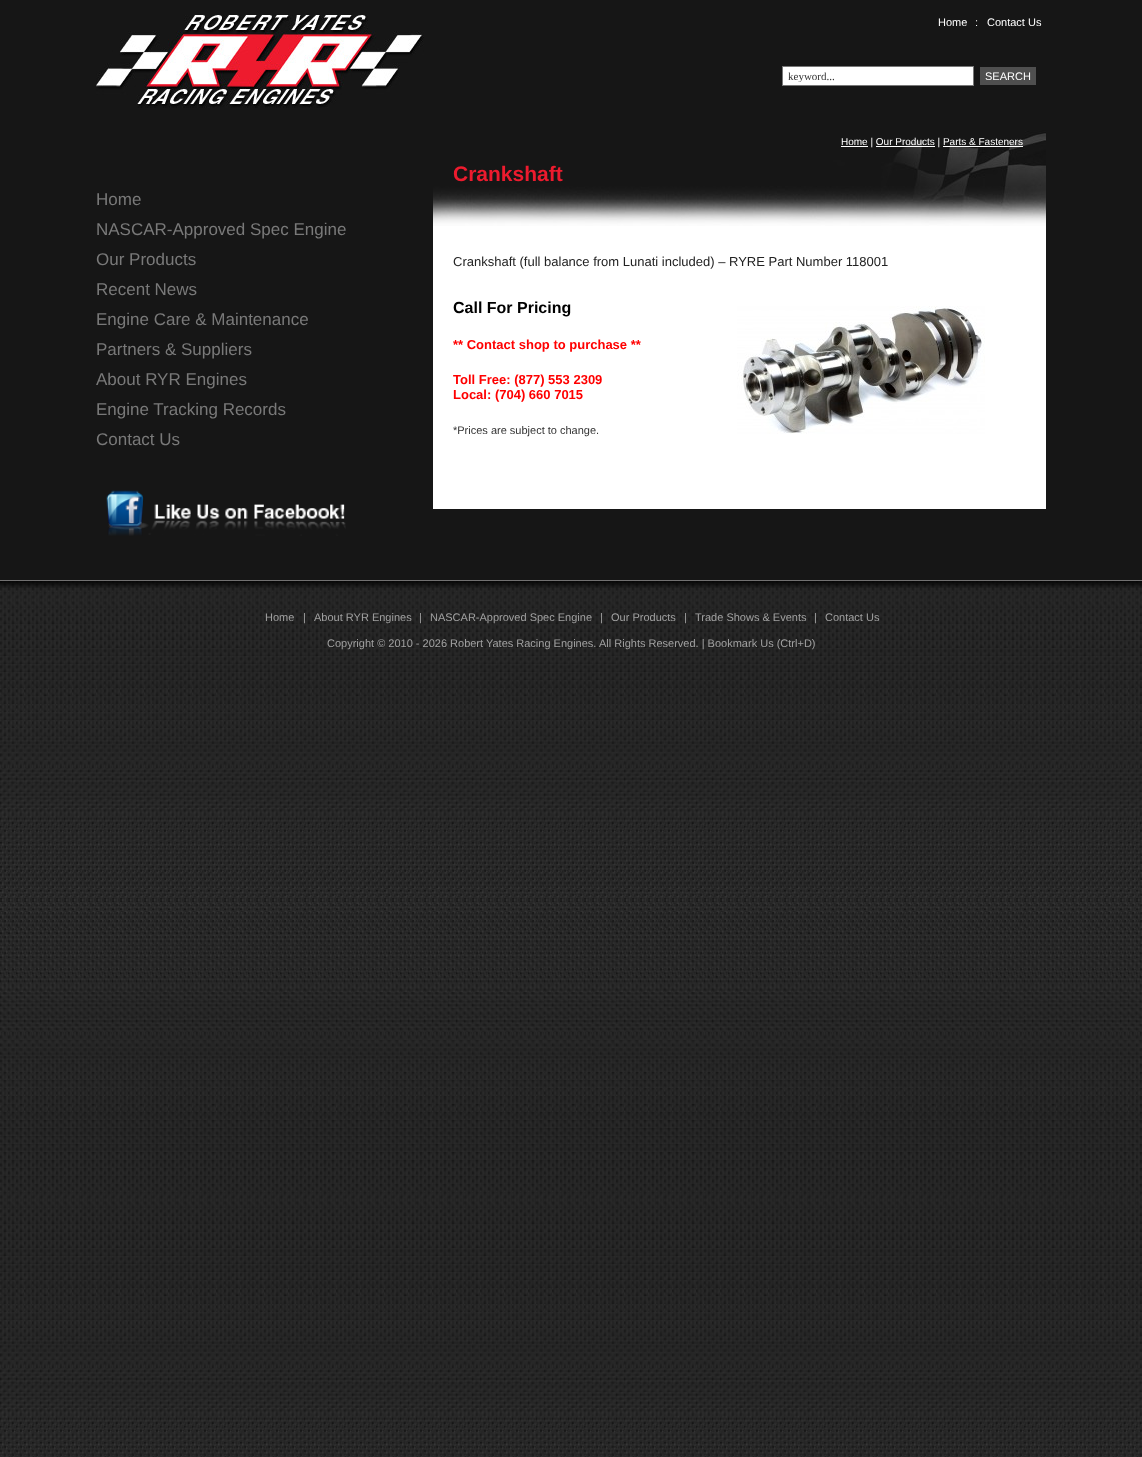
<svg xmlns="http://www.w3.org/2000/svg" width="1142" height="1457">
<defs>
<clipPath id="clip1"><rect x="788" y="70" width="185" height="12"/></clipPath>
</defs>
<rect width="100%" height="100%" fill="#fff"/>
<image x="0" y="581" width="1142" height="876" href="media/1.png"/>
<rect width="1142" height="567" fill="#161616"/>
<image x="96" y="15" width="328" height="93" href="media/2.png"/>
<text x="938" y="26" style="font-family:Liberation Sans;font-size:11px;fill:#fff">Home</text>
<text x="975" y="26" style="font-family:Liberation Sans;font-size:11px;fill:#fff">:</text>
<text x="987" y="26" style="font-family:Liberation Sans;font-size:11px;fill:#fff">Contact Us</text>
<rect x="782.5" y="66.5" width="191" height="19" fill="#fff" stroke="#777"/>
<g clip-path="url(#clip1)">
<text x="788" y="80" style="font-family:Liberation Serif;font-size:11px;fill:#333">keyword...</text>
</g>
<rect x="980" y="67" width="56" height="18" fill="#4f4f4f"/>
<text x="985" y="80" style="font-family:Liberation Sans;font-size:11px;fill:#fff">SEARCH</text>
<text x="96" y="205" style="font-family:Liberation Sans;font-size:17px;fill:#797979">Home</text>
<text x="96" y="235" style="font-family:Liberation Sans;font-size:17px;fill:#797979">NASCAR-Approved Spec Engine</text>
<text x="96" y="265" style="font-family:Liberation Sans;font-size:17px;fill:#797979">Our Products</text>
<text x="96" y="295" style="font-family:Liberation Sans;font-size:17px;fill:#797979">Recent News</text>
<text x="96" y="325" style="font-family:Liberation Sans;font-size:17px;fill:#797979">Engine Care &amp; Maintenance</text>
<text x="96" y="355" style="font-family:Liberation Sans;font-size:17px;fill:#797979">Partners &amp; Suppliers</text>
<text x="96" y="385" style="font-family:Liberation Sans;font-size:17px;fill:#797979">About RYR Engines</text>
<text x="96" y="415" style="font-family:Liberation Sans;font-size:17px;fill:#797979">Engine Tracking Records</text>
<text x="96" y="445" style="font-family:Liberation Sans;font-size:17px;fill:#797979">Contact Us</text>
<image x="106" y="490" width="240" height="46" href="media/3.png"/>
<rect x="433" y="226" width="613" height="283" fill="#fff"/>
<image x="433" y="130" width="613" height="96" href="media/4.png"/>
<rect x="841" y="146" width="27" height="1" fill="#fff"/>
<text x="841" y="145" style="font-family:Liberation Sans;font-size:10px;fill:#fff">Home | Our Products | Parts &amp; Fasteners</text>
<rect x="876" y="146" width="59" height="1" fill="#fff"/>
<rect x="943" y="146" width="80" height="1" fill="#fff"/>
<text x="453" y="181" style="font-family:Liberation Sans;font-size:21px;font-weight:bold;fill:#ed1b2e">Crankshaft</text>
<text x="453" y="266" style="font-family:Liberation Sans;font-size:13px;fill:#222">Crankshaft (full balance from Lunati included) – RYRE Part Number 118001</text>
<image x="737" y="306" width="248" height="128" href="media/5.png"/>
<text x="453" y="313" style="font-family:Liberation Sans;font-size:16px;font-weight:bold;fill:#000">Call For Pricing</text>
<text x="453" y="349" style="font-family:Liberation Sans;font-size:13px;font-weight:bold;fill:#f00">** Contact shop to purchase **</text>
<text x="453" y="384" style="font-family:Liberation Sans;font-size:13px;font-weight:bold;fill:#f00">Toll Free: (877) 553 2309</text>
<text x="453" y="399" style="font-family:Liberation Sans;font-size:13px;font-weight:bold;fill:#f00">Local: (704) 660 7015</text>
<text x="453" y="434" style="font-family:Liberation Sans;font-size:11px;fill:#333">*Prices are subject to change.</text>
<image x="0" y="567" width="1142" height="21" href="media/6.png"/>
<text x="265" y="621" style="font-family:Liberation Sans;font-size:11px;fill:#a1a1a1">Home</text>
<text x="303" y="621" style="font-family:Liberation Sans;font-size:11px;fill:#a1a1a1">|</text>
<text x="314" y="621" style="font-family:Liberation Sans;font-size:11px;fill:#a1a1a1">About RYR Engines</text>
<text x="419" y="621" style="font-family:Liberation Sans;font-size:11px;fill:#a1a1a1">|</text>
<text x="430" y="621" style="font-family:Liberation Sans;font-size:11px;fill:#a1a1a1">NASCAR-Approved Spec Engine</text>
<text x="600" y="621" style="font-family:Liberation Sans;font-size:11px;fill:#a1a1a1">|</text>
<text x="611" y="621" style="font-family:Liberation Sans;font-size:11px;fill:#a1a1a1">Our Products</text>
<text x="684" y="621" style="font-family:Liberation Sans;font-size:11px;fill:#a1a1a1">|</text>
<text x="695" y="621" style="font-family:Liberation Sans;font-size:11px;fill:#a1a1a1">Trade Shows &amp; Events</text>
<text x="814" y="621" style="font-family:Liberation Sans;font-size:11px;fill:#a1a1a1">|</text>
<text x="825" y="621" style="font-family:Liberation Sans;font-size:11px;fill:#a1a1a1">Contact Us</text>
<text x="327" y="647" style="font-family:Liberation Sans;font-size:11px;fill:#a1a1a1">Copyright © 2010 - 2026 Robert Yates Racing Engines.</text>
<text x="599" y="647" style="font-family:Liberation Sans;font-size:11px;fill:#a1a1a1">All Rights Reserved. | Bookmark Us (Ctrl+D)</text>
</svg>
